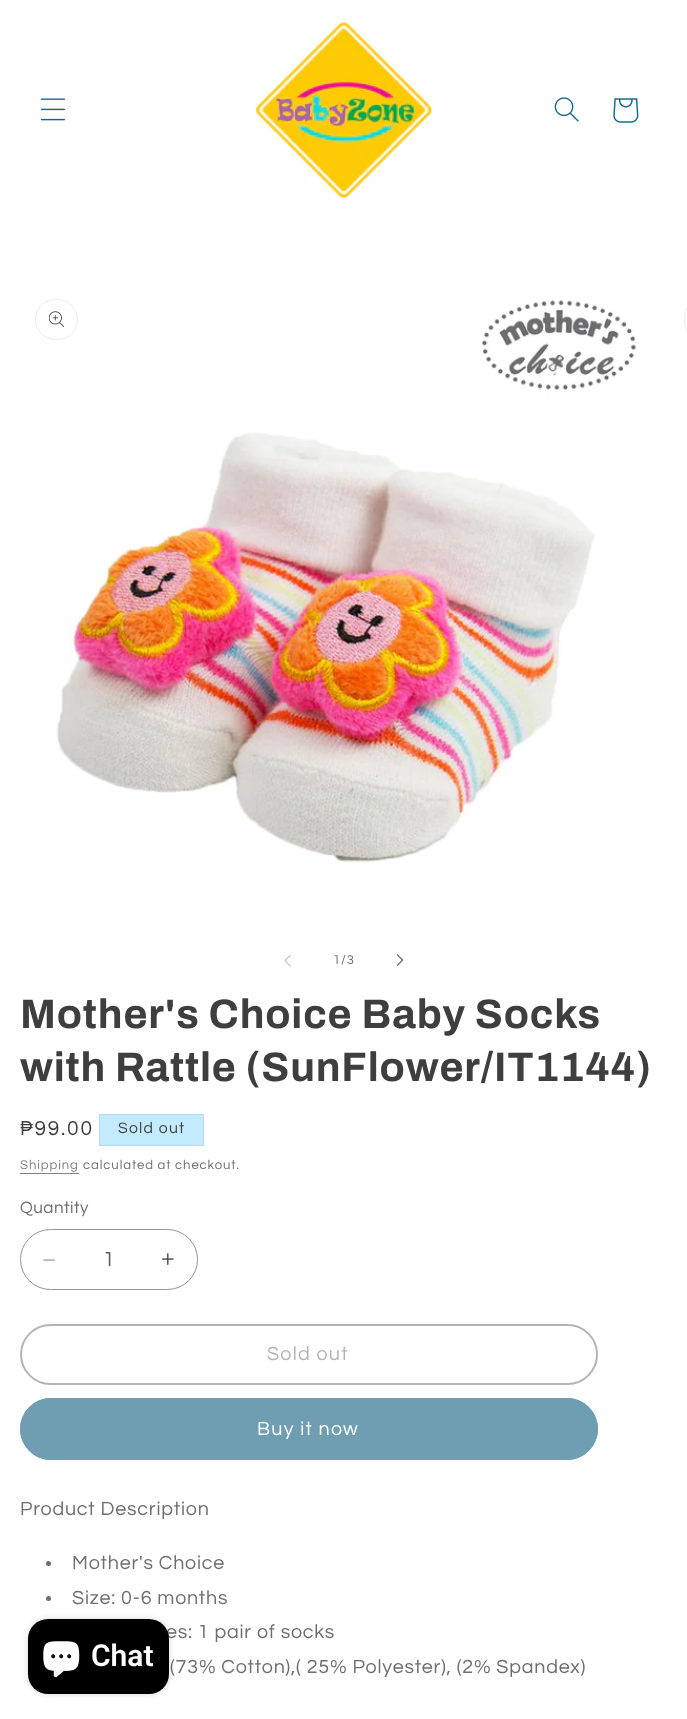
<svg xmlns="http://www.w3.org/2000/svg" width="687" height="1719">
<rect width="100%" height="100%" fill="#fff"/>
<image x="40" y="98" width="26" height="23" href="media/1.png"/>
<image x="256" y="22" width="176" height="176" href="media/2.png"/>
<image x="554" y="97" width="25" height="25" href="media/3.png"/>
<image x="613" y="98" width="26" height="25" href="media/4.png"/>
<image x="56" y="300" width="581" height="563" href="media/6.png"/>
<rect x="35.5" y="299.5" width="42" height="40" rx="20" fill="none" stroke="#ececec"/>
<image x="49" y="311" width="15" height="16" href="media/5.png"/>
<rect x="684.5" y="299.5" width="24" height="40" rx="20" fill="none" stroke="#ececec"/>
<image x="284" y="955" width="7" height="12" href="media/7.png"/>
<text x="333" y="964" style="font-family:Questrial;font-size:13.1px;letter-spacing:0.9px;fill:#6e6e6e">1/3</text>
<image x="396" y="954" width="8" height="12" href="media/8.png"/>
<text x="20" y="1028" style="font-family:Archivo;font-size:41.25px;font-weight:bold;letter-spacing:0.8px;fill:#3e3e3e">Mother's Choice Baby Socks</text>
<text x="20" y="1081" style="font-family:Archivo;font-size:41.25px;font-weight:bold;letter-spacing:0.8px;fill:#3e3e3e">with Rattle (SunFlower/IT1144)</text>
<text x="20" y="1135" style="font-family:Questrial;font-size:21px;letter-spacing:1.75px;fill:#3e3e3e">₱99.00</text>
<rect x="99.5" y="1114.5" width="104" height="31" fill="#c2ebff" stroke="#b5daec"/>
<text x="118" y="1133" style="font-family:Questrial;font-size:15.75px;letter-spacing:1.25px;fill:#3e3e3e">Sold out</text>
<text x="20" y="1169" style="font-family:Questrial;font-size:13.1px;letter-spacing:0.9px;fill:#808080">Shipping</text>
<rect x="20" y="1173" width="59" height="1" fill="#808080"/>
<text x="83" y="1169" style="font-family:Questrial;font-size:13.1px;letter-spacing:0.9px;fill:#6e6e6e">calculated at checkout.</text>
<text x="20" y="1213" style="font-family:Questrial;font-size:17px;letter-spacing:0.5px;fill:#6e6e6e">Quantity</text>
<image x="43" y="1259" width="12" height="2" href="media/9.png"/>
<image x="162" y="1253" width="12" height="12" href="media/10.png"/>
<rect x="20.5" y="1229.5" width="177" height="60" rx="30" fill="none" stroke="#959595"/>
<text x="103" y="1266" style="font-family:Questrial;font-size:21px;fill:#5b5b5b">1</text>
<rect x="21" y="1325" width="576" height="59" rx="29.5" fill="none" stroke="#b4b4b4" stroke-width="2"/>
<text x="267" y="1360" style="font-family:Questrial;font-size:19.7px;letter-spacing:1.25px;fill:#b4b4b4">Sold out</text>
<rect x="20" y="1398" width="578" height="62" rx="31" fill="#6f9db2"/>
<rect x="20.5" y="1398.5" width="577" height="61" rx="30.5" fill="none" stroke="#6f9db2"/>
<text x="257" y="1435" style="font-family:Questrial;font-size:19.7px;letter-spacing:1.25px;fill:#fff">Buy it now</text>
<text x="20" y="1515" style="font-family:Questrial;font-size:19.7px;letter-spacing:0.8px;fill:#6e6e6e">Product Description</text>
<circle cx="48.5" cy="1563.5" r="2.5" fill="#6e6e6e"/>
<text x="72" y="1569" style="font-family:Questrial;font-size:19.7px;letter-spacing:0.8px;fill:#6e6e6e">Mother's Choice</text>
<circle cx="48.5" cy="1598.5" r="2.5" fill="#6e6e6e"/>
<text x="72" y="1604" style="font-family:Questrial;font-size:19.7px;letter-spacing:0.8px;fill:#6e6e6e">Size: 0-6 months</text>
<text x="166" y="1638" style="font-family:Questrial;font-size:19.7px;letter-spacing:0.8px;fill:#6e6e6e">es: 1 pair of socks</text>
<text x="170" y="1673" style="font-family:Questrial;font-size:19.7px;letter-spacing:0.8px;fill:#6e6e6e">(73% Cotton),( 25% Polyester), (2% Spandex)</text>
<rect x="28" y="1619" width="141" height="75" rx="20" fill="#00000026" filter="blur(3px)"/>
<rect x="28" y="1619" width="141" height="75" rx="20" fill="#000"/>
<image x="43" y="1641" width="37" height="37" href="media/11.png"/>
<text x="91" y="1666" style="font-family:Roboto;font-size:30px;font-weight:600;fill:#fff">Chat</text>
</svg>
